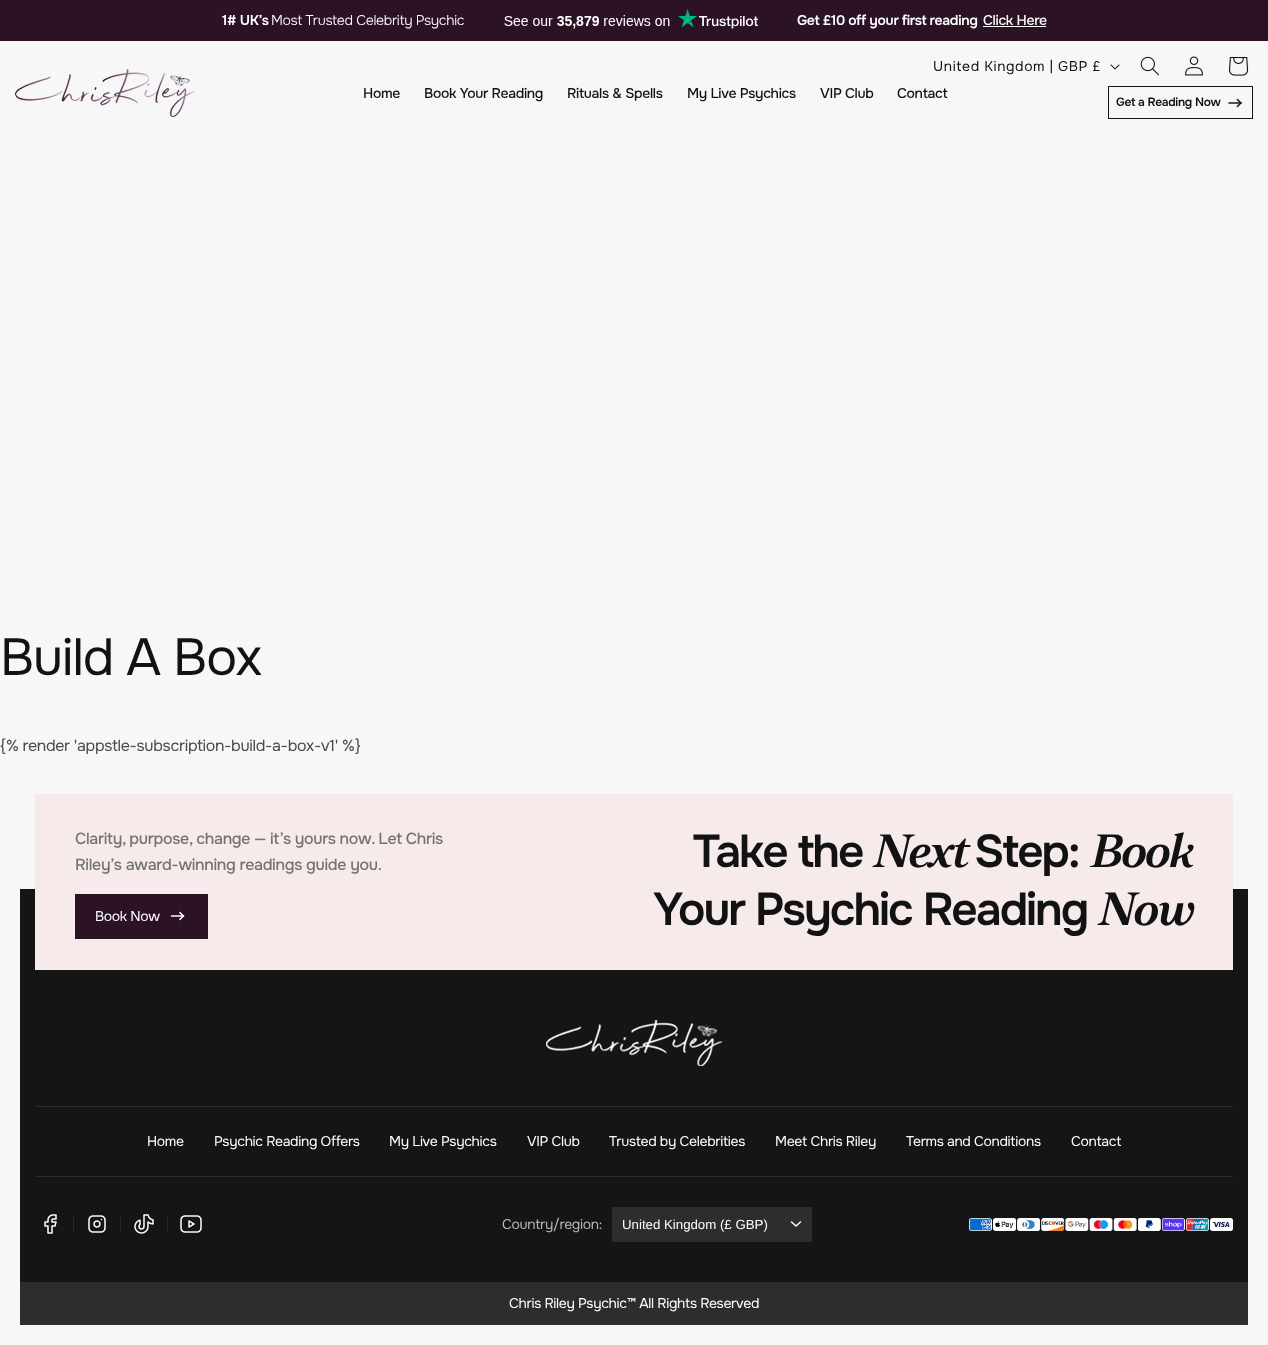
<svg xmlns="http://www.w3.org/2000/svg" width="1268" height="1345">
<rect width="100%" height="100%" fill="#f8f7f8"/>
<rect width="1268" height="41" fill="#2b1225"/>
<text x="222" y="25" style="font-family:Onest;font-size:14px;font-weight:600;letter-spacing:-0.32px;fill:#fff">1# UK’s</text>
<text x="271" y="25" style="font-family:Onest;font-size:14px;font-weight:300;letter-spacing:-0.32px;fill:#fff">Most Trusted Celebrity Psychic</text>
<image x="504" y="9" width="254" height="20" href="media/1.png"/>
<text x="797" y="25" word-spacing="-0.25" style="font-family:Onest;font-size:14px;font-weight:600;letter-spacing:-0.32px;fill:#fff">Get £10 off your first reading</text>
<text x="983" y="25" style="font-family:Onest;font-size:14px;font-weight:500;letter-spacing:-0.32px;fill:#fff">Click Here</text>
<rect x="983" y="26" width="63" height="1" fill="#fff"/>
<text x="933" y="71" style="font-family:Onest;font-size:14px;letter-spacing:0.6px;fill:#121212">United Kingdom |</text>
<text x="1058" y="71" style="font-family:Onest;font-size:14px;letter-spacing:0.6px;fill:#121212">GBP £</text>
<image x="1110" y="64" width="10" height="6" href="media/2.png"/>
<image x="1140" y="56" width="19" height="20" href="media/3.png"/>
<image x="1185" y="56" width="18" height="20" href="media/4.png"/>
<image x="1229" y="57" width="20" height="19" href="media/5.png"/>
<image x="15" y="69" width="180" height="48" href="media/6.png"/>
<text x="363" y="98" style="font-family:Onest;font-size:14px;font-weight:500;letter-spacing:-0.32px;fill:#121212">Home</text>
<text x="424" y="98" style="font-family:Onest;font-size:14px;font-weight:500;letter-spacing:-0.32px;fill:#121212">Book Your Reading</text>
<text x="567" y="98" style="font-family:Onest;font-size:14px;font-weight:500;letter-spacing:-0.32px;fill:#121212">Rituals &amp; Spells</text>
<text x="687" y="98" style="font-family:Onest;font-size:14px;font-weight:500;letter-spacing:-0.32px;fill:#121212">My Live Psychics</text>
<text x="820" y="98" style="font-family:Onest;font-size:14px;font-weight:500;letter-spacing:-0.32px;fill:#121212">VIP Club</text>
<text x="897" y="98" style="font-family:Onest;font-size:14px;font-weight:500;letter-spacing:-0.32px;fill:#121212">Contact</text>
<rect x="1108.5" y="86.5" width="144" height="32" fill="none" stroke="#151515"/>
<text x="1116" y="106" style="font-family:Onest;font-size:12px;font-weight:600;letter-spacing:-0.32px;fill:#121212">Get a Reading Now</text>
<image x="1228" y="98" width="14" height="10" href="media/7.png"/>
<text x="0" y="675" style="font-family:Onest;font-size:52px;letter-spacing:-1px;fill:#121212">Build A Box</text>
<text x="0" y="751" style="font-family:Onest;font-size:16px;letter-spacing:-0.32px;fill:#4c4b4c">{% render 'appstle-subscription-build-a-box-v1' %}</text>
<rect x="20" y="889" width="1228" height="393" fill="#151515"/>
<rect x="35" y="794" width="1198" height="176" fill="#f6ebea"/>
<text x="75" y="844" word-spacing="-0.25" style="font-family:Onest;font-size:16px;font-weight:500;letter-spacing:-0.32px;fill:#737373">Clarity, purpose, change — it’s yours now. Let Chris</text>
<text x="75" y="870" style="font-family:Onest;font-size:16px;font-weight:500;letter-spacing:-0.32px;fill:#737373">Riley’s award-winning readings guide you.</text>
<rect x="75" y="894" width="133" height="45" fill="#2b1225"/>
<text x="95" y="921" style="font-family:Onest;font-size:14px;letter-spacing:-0.32px;fill:#fff">Book Now</text>
<image x="170" y="911" width="15" height="10" href="media/8.png"/>
<text x="693" y="867" style="font-family:Onest;font-size:46px;font-weight:600;letter-spacing:-2px;fill:#121212">Take the</text>
<text x="873" y="867" style="font-family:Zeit;font-size:46px;font-weight:500;font-style:italic;letter-spacing:-2px;fill:#121212">Next</text>
<text x="974" y="867" style="font-family:Onest;font-size:46px;font-weight:600;letter-spacing:-2px;fill:#121212">Step:</text>
<text x="1090" y="867" style="font-family:Zeit;font-size:46px;font-weight:500;font-style:italic;letter-spacing:-2px;fill:#121212">Book</text>
<text x="653" y="925" style="font-family:Onest;font-size:46px;font-weight:600;letter-spacing:-2px;fill:#121212">Your Psychic Reading</text>
<text x="1098" y="925" style="font-family:Zeit;font-size:46px;font-weight:500;font-style:italic;letter-spacing:-2px;fill:#121212">Now</text>
<image x="546" y="1020" width="176" height="46" href="media/9.png"/>
<rect x="35" y="1106" width="1198" height="1" fill="#2c2c2c"/>
<rect x="35" y="1176" width="1198" height="1" fill="#2c2c2c"/>
<text x="147" y="1146" style="font-family:Onest;font-size:14px;letter-spacing:-0.32px;fill:#fff">Home</text>
<text x="214" y="1146" style="font-family:Onest;font-size:14px;letter-spacing:-0.32px;fill:#fff">Psychic Reading Offers</text>
<text x="389" y="1146" style="font-family:Onest;font-size:14px;letter-spacing:-0.32px;fill:#fff">My Live Psychics</text>
<text x="527" y="1146" style="font-family:Onest;font-size:14px;letter-spacing:-0.32px;fill:#fff">VIP Club</text>
<text x="609" y="1146" style="font-family:Onest;font-size:14px;letter-spacing:-0.32px;fill:#fff">Trusted by Celebrities</text>
<text x="775" y="1146" style="font-family:Onest;font-size:14px;letter-spacing:-0.32px;fill:#fff">Meet Chris Riley</text>
<text x="906" y="1146" style="font-family:Onest;font-size:14px;letter-spacing:-0.32px;fill:#fff">Terms and Conditions</text>
<text x="1071" y="1146" style="font-family:Onest;font-size:14px;letter-spacing:-0.32px;fill:#fff">Contact</text>
<image x="44" y="1214" width="13" height="20" href="media/10.png"/>
<rect x="73" y="1217" width="1" height="14" fill="#2c2c2c"/>
<image x="88" y="1215" width="18" height="18" href="media/11.png"/>
<rect x="120" y="1217" width="1" height="14" fill="#2c2c2c"/>
<image x="134" y="1214" width="20" height="20" href="media/12.png"/>
<rect x="167" y="1217" width="1" height="14" fill="#2c2c2c"/>
<image x="180" y="1215" width="22" height="18" href="media/13.png"/>
<text x="502" y="1229" style="font-family:Onest;font-size:14px;letter-spacing:-0.32px;fill:#b6b6b6">Country/region:</text>
<rect x="612" y="1207" width="200" height="35" fill="#2d2d2d"/>
<path d="M791.5 1222l4.5 4l4.5-4" fill="none" stroke="#fff" stroke-width="1.5" stroke-linecap="round" stroke-linejoin="round"/>
<text x="622" y="1229" style="font-family:Liberation Sans;font-size:13.25px;fill:#fff">United Kingdom (£ GBP)</text>
<image x="969" y="1218" width="264" height="13" href="media/14.png"/>
<rect x="20" y="1282" width="1228" height="43" fill="#2d2d2d"/>
<text x="509" y="1308" style="font-family:Onest;font-size:14px;letter-spacing:-0.32px;fill:#fff">Chris Riley Psychic™ All Rights Reserved</text>
</svg>
